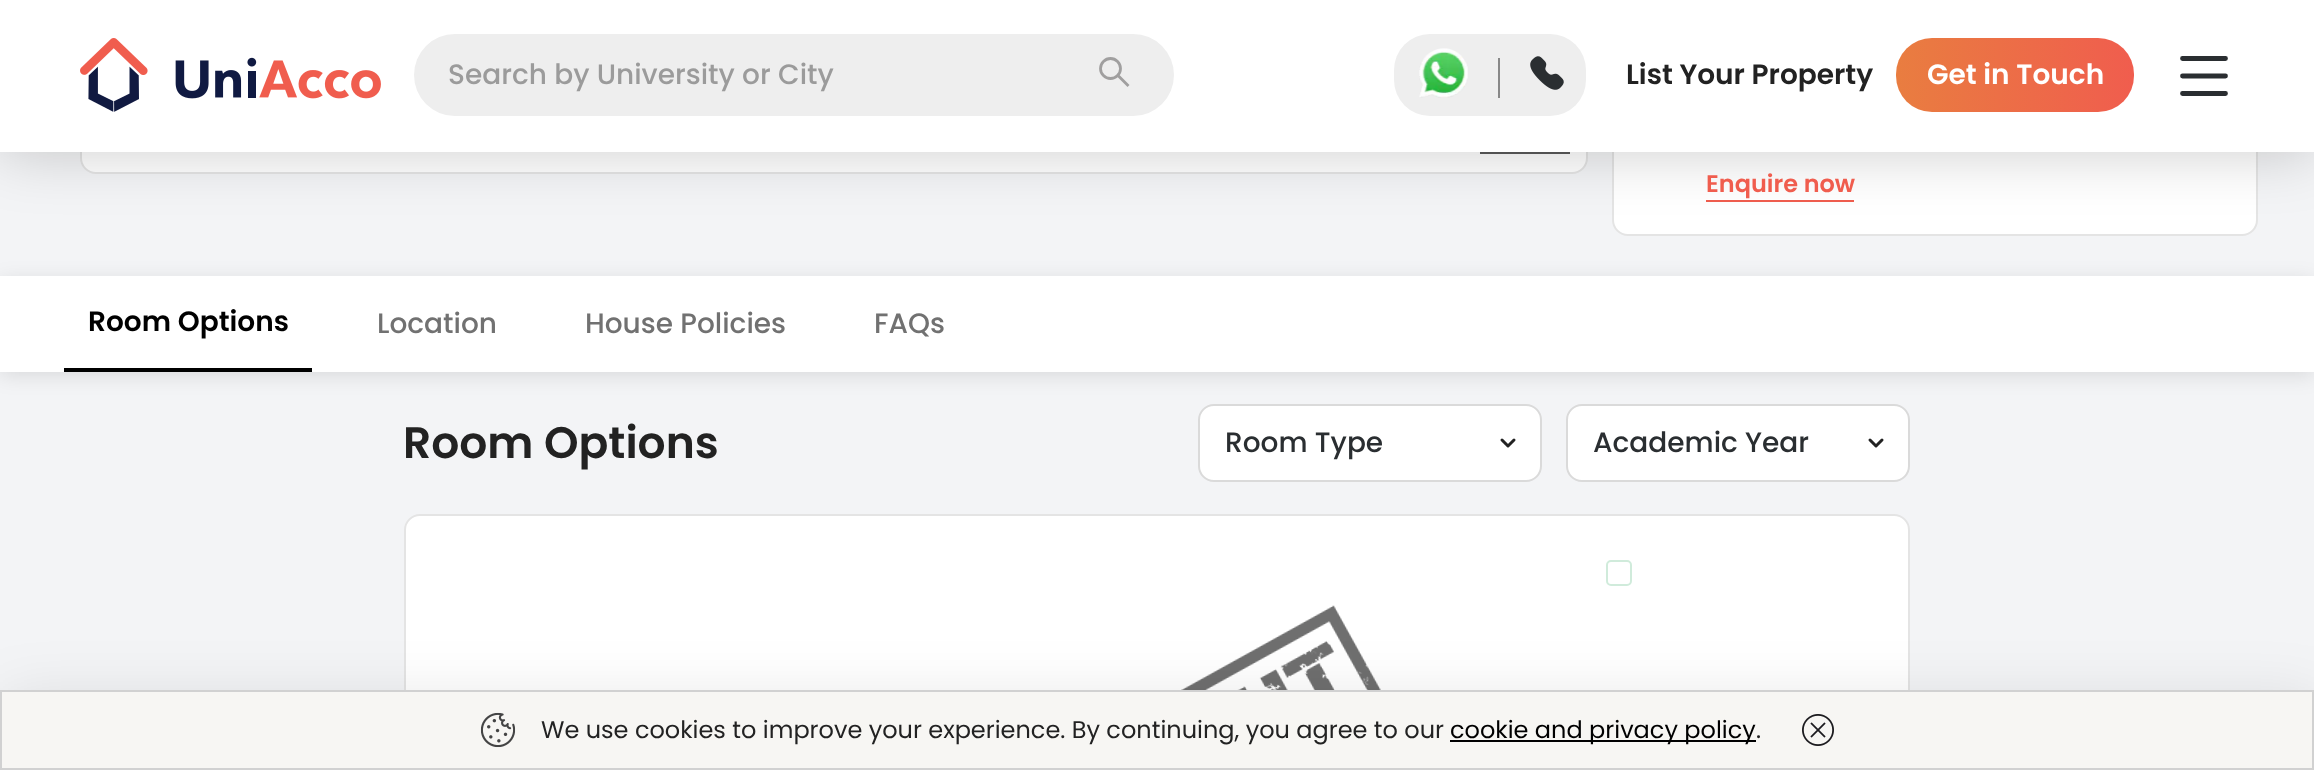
<svg xmlns="http://www.w3.org/2000/svg" width="2314" height="770">
<defs>
<linearGradient id="g1" gradientUnits="userSpaceOnUse" x1="2134" y1="75" x2="1896" y2="75"><stop offset="0" stop-color="#f05d4e"/><stop offset="1" stop-color="#e97d40"/></linearGradient>
</defs>
<rect width="100%" height="100%" fill="#f3f4f6"/>
<rect x="81" y="-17" width="1506" height="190" rx="15" fill="#fff" stroke="#e4e4e4" stroke-width="2"/>
<rect x="1480" y="152" width="90" height="2" fill="#5b5b5b"/>
<rect x="1613" y="17" width="644" height="218" rx="15" fill="#fff" stroke="#e4e4e4" stroke-width="2"/>
<rect x="1706" y="200" width="148" height="2" fill="#f05d4e"/>
<rect width="2314" height="152" fill="#00000033" filter="blur(30px)"/>
<rect width="2314" height="152" fill="#fff"/>
<image x="80" y="38" width="301" height="74" href="media/1.png"/>
<rect x="414" y="34" width="760" height="82" rx="41" fill="#eee"/>
<text x="448" y="84" style="font-family:Poppins;font-size:28px;font-weight:500;fill:#9b9b9b">Search by University or City</text>
<circle cx="1110.5" cy="68.5" r="10" fill="none" stroke="#a09f9f" stroke-width="2.8"/>
<path d="M1117 74.5l11.5 11.5" fill="none" stroke="#a09f9f" stroke-width="2.8"/>
<rect x="1394" y="34" width="192" height="82" rx="36" fill="#eee"/>
<image x="1419" y="48" width="49" height="50" href="media/2.png"/>
<rect x="1498" y="58" width="2" height="40" fill="#888"/>
<image x="1530" y="56" width="34" height="34" href="media/3.png"/>
<text x="1626" y="84" style="font-family:Poppins;font-size:28px;font-weight:600;fill:#222">List Your Property</text>
<rect x="1896" y="38" width="238" height="74" rx="36" fill="url(#g1)"/>
<text x="1927" y="84" style="font-family:Poppins;font-size:28px;font-weight:600;fill:#fff">Get in Touch</text>
<path d="M2182.5 58.5h43m-43 17.5h43m-43 17.5h43" fill="none" stroke="#2a2e31" stroke-width="4.8" stroke-linecap="round"/>
<text x="1706" y="192" style="font-family:Poppins;font-size:24px;font-weight:600;fill:#f05d4e">Enquire now</text>
<rect x="1199" y="405" width="342" height="76" rx="15" fill="#fff" stroke="#dadada" stroke-width="2"/>
<rect x="1567" y="405" width="342" height="76" rx="15" fill="#fff" stroke="#dadada" stroke-width="2"/>
<rect y="280" width="2314" height="96" fill="#0000001a" filter="blur(10px)"/>
<rect y="276" width="2314" height="96" fill="#fff"/>
<rect x="64" y="368" width="248" height="4" fill="#000"/>
<text x="88" y="331" style="font-family:Poppins;font-size:28px;font-weight:600;fill:#000">Room Options</text>
<text x="377" y="333" style="font-family:Poppins;font-size:28px;font-weight:500;fill:#717171">Location</text>
<text x="585" y="333" style="font-family:Poppins;font-size:28px;font-weight:500;fill:#717171">House Policies</text>
<text x="874" y="333" style="font-family:Poppins;font-size:28px;font-weight:500;fill:#717171">FAQs</text>
<text x="403" y="458" style="font-family:Poppins;font-size:44px;font-weight:600;fill:#222">Room Options</text>
<text x="1225" y="452" style="font-family:Poppins;font-size:28px;font-weight:500;fill:#2a2e31">Room Type</text>
<path d="M1514 440l-6 6l-6-6" fill="none" stroke="#222" stroke-width="3" stroke-linecap="round" stroke-linejoin="round"/>
<text x="1593" y="452" style="font-family:Poppins;font-size:28px;font-weight:500;fill:#2a2e31">Academic Year</text>
<path d="M1882 440l-6 6l-6-6" fill="none" stroke="#222" stroke-width="3" stroke-linecap="round" stroke-linejoin="round"/>
<rect x="405" y="515" width="1504" height="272" rx="15" fill="#fff" stroke="#e4e4e4" stroke-width="2"/>
<rect x="1607" y="561" width="24" height="24" rx="4" fill="none" stroke="#149d4a" stroke-width="2"/>
<rect x="406" y="516" width="1502" height="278" rx="24" fill="#ffffffcc"/>
<image x="1181" y="605" width="200" height="85" href="media/4.png"/>
<rect x="4" y="698" width="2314" height="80" fill="#0000001a" filter="blur(30px)"/>
<rect x="1" y="691" width="2312" height="78" fill="#f7f6f3" stroke="#d1d1d1" stroke-width="2"/>
<image x="480" y="712" width="36" height="36" href="media/5.png"/>
<text x="541" y="738" style="font-family:Poppins;font-size:24px;fill:#222">We use cookies to improve your experience. By continuing, you agree to our</text>
<rect x="1450" y="740" width="306" height="2" fill="#000"/>
<text x="1450" y="738" style="font-family:Poppins;font-size:24px;fill:#000">cookie and privacy policy</text>
<text x="1756" y="738" style="font-family:Poppins;font-size:24px;fill:#222">.</text>
<image x="1802" y="714" width="32" height="32" href="media/6.png"/>
</svg>
